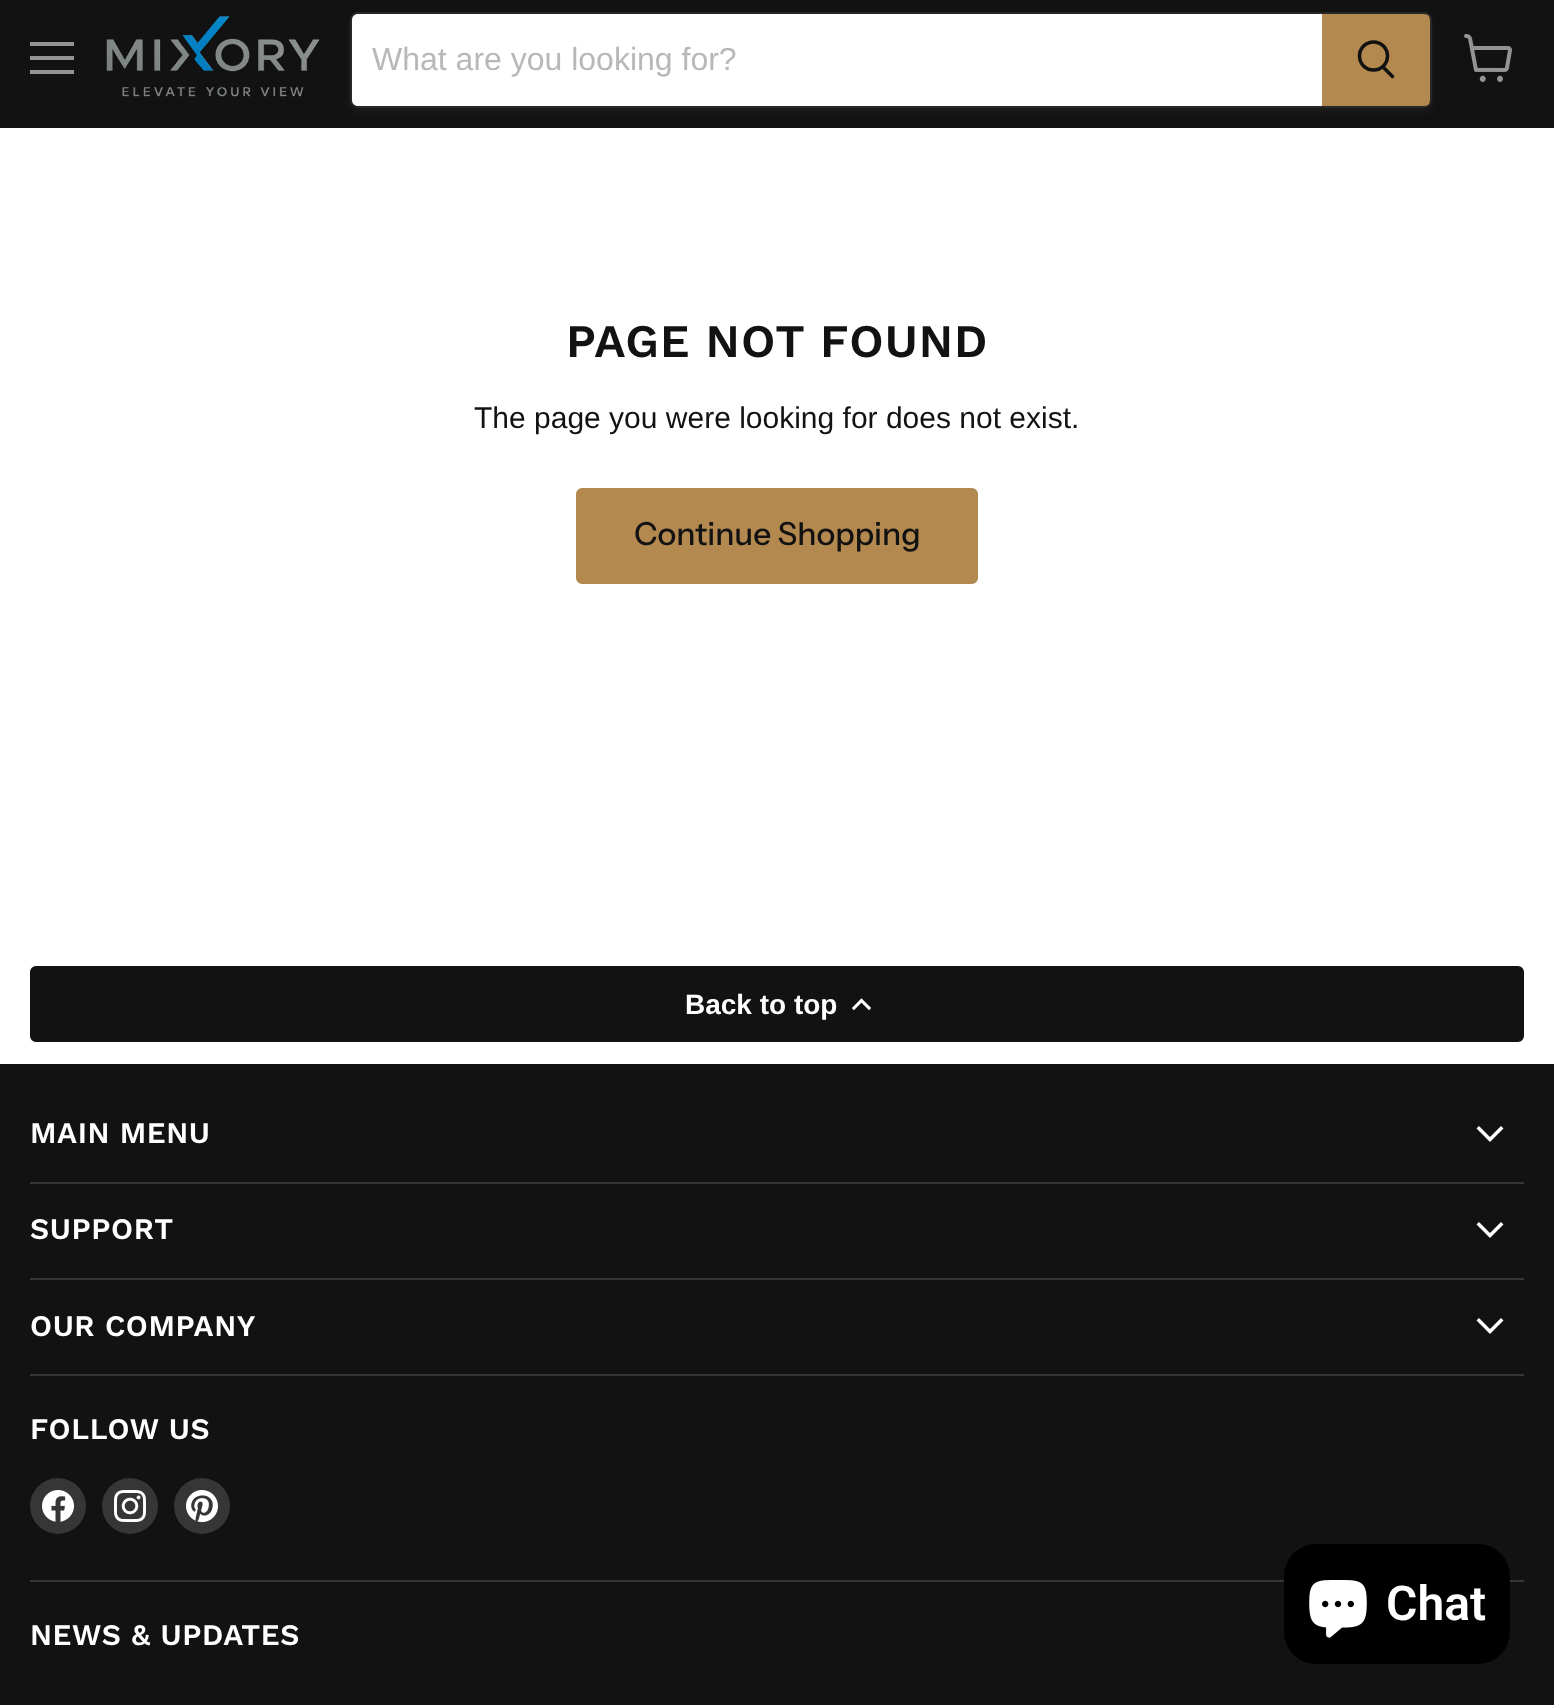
<svg xmlns="http://www.w3.org/2000/svg" width="1554" height="1705">
<defs>
<clipPath id="clip1"><path d="M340 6h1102v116h-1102zm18 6h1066c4.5 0 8 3.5 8 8v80c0 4.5-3.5 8-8 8h-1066c-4.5 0-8-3.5-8-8v-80c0-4.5 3.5-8 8-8z" clip-rule="evenodd"/></clipPath>
</defs>
<rect width="100%" height="100%" fill="#fff"/>
<rect width="1554" height="128" fill="#121212"/>
<rect x="30" y="42" width="44" height="4" fill="#949494"/>
<rect x="30" y="56" width="44" height="4" fill="#949494"/>
<rect x="30" y="70" width="44" height="4" fill="#949494"/>
<image x="106" y="16" width="214" height="81" href="media/1.png"/>
<g clip-path="url(#clip1)">
<rect x="350" y="16" width="1082" height="96" rx="8" fill="#8080801c" filter="blur(3px)"/>
</g>
<rect x="351" y="13" width="1080" height="94" rx="7" fill="none" stroke="#80808033" stroke-width="2"/>
<path d="M358 14h964v92h-964c-3.5 0-6-2.5-6-6v-80c0-3.5 2.5-6 6-6z" fill="#fff"/>
<text x="372" y="70" style="font-family:Liberation Sans;font-size:32px;fill:#b8b8b8">What are you looking for?</text>
<path d="M1323 15h101c3 0 5 2 5 5v80c0 3-2 5-5 5h-101z" fill="#b38950" stroke="#b38950" stroke-width="2"/>
<path d="M1392.5 76.5l-9.5-9.5" fill="none" stroke="#121212" stroke-width="3.5" stroke-linecap="round"/>
<circle cx="1373.5" cy="56" r="14" fill="none" stroke="#121212" stroke-width="3.5"/>
<image x="1464" y="34" width="48" height="48" href="media/2.png"/>
<text x="566" y="357" style="font-family:Work Sans;font-size:46.5px;font-weight:600;letter-spacing:1px;fill:#121212">PAGE NOT FOUND</text>
<text x="474" y="428" style="font-family:Liberation Sans;font-size:30px;fill:#121212">The page you were looking for does not exist.</text>
<rect x="577" y="489" width="400" height="94" rx="5" fill="#b38950" stroke="#b38950" stroke-width="2"/>
<text x="634" y="545" style="font-family:Instrument Sans;font-size:31.75px;font-weight:500;fill:#121212">Continue Shopping</text>
<rect x="31" y="967" width="1492" height="74" rx="5" fill="#121212" stroke="#121212" stroke-width="2"/>
<text x="685" y="1014" style="font-family:Liberation Sans;font-size:28px;font-weight:bold;fill:#fff">Back to top</text>
<path d="M861.5 1000.5l-7.5 7.5m7.5-7.5l7.5 7.5" fill="none" stroke="#fff" stroke-width="3.1" stroke-linecap="square"/>
<rect y="1064" width="1554" height="641" fill="#121212"/>
<rect x="30" y="1182" width="1494" height="2" fill="#363636"/>
<text x="30" y="1143" style="font-family:Work Sans;font-size:29.75px;font-weight:600;letter-spacing:0.6px;fill:#fff">MAIN MENU</text>
<path d="M1490 1139.5l11-11m-11 11l-11-11" fill="none" stroke="#fff" stroke-width="3.5" stroke-linecap="square"/>
<rect x="30" y="1278" width="1494" height="2" fill="#363636"/>
<text x="30" y="1239" style="font-family:Work Sans;font-size:29.75px;font-weight:600;letter-spacing:0.6px;fill:#fff">SUPPORT</text>
<path d="M1490 1235.5l11-11m-11 11l-11-11" fill="none" stroke="#fff" stroke-width="3.5" stroke-linecap="square"/>
<rect x="30" y="1374" width="1494" height="2" fill="#363636"/>
<text x="30" y="1336" style="font-family:Work Sans;font-size:29.75px;font-weight:600;letter-spacing:0.6px;fill:#fff">OUR COMPANY</text>
<path d="M1490 1331.5l11-11m-11 11l-11-11" fill="none" stroke="#fff" stroke-width="3.5" stroke-linecap="square"/>
<rect x="30" y="1580" width="1494" height="2" fill="#363636"/>
<text x="30" y="1439" style="font-family:Work Sans;font-size:29.75px;font-weight:600;letter-spacing:0.6px;fill:#fff">FOLLOW US</text>
<circle cx="58" cy="1506" r="28" fill="#363636"/>
<image x="42" y="1490" width="32" height="32" href="media/3.png"/>
<circle cx="130" cy="1506" r="28" fill="#363636"/>
<image x="114" y="1490" width="32" height="32" href="media/4.png"/>
<circle cx="202" cy="1506" r="28" fill="#363636"/>
<image x="186" y="1490" width="32" height="33" href="media/5.png"/>
<text x="30" y="1645" style="font-family:Work Sans;font-size:29.75px;font-weight:600;letter-spacing:0.6px;fill:#fff">NEWS &amp; UPDATES</text>
<rect x="1284" y="1544" width="226" height="120" rx="32" fill="#000"/>
<image x="1309" y="1580" width="58" height="58" href="media/6.png"/>
<text x="1386" y="1620" style="font-family:Roboto;font-size:48px;font-weight:600;fill:#fff">Chat</text>
</svg>
